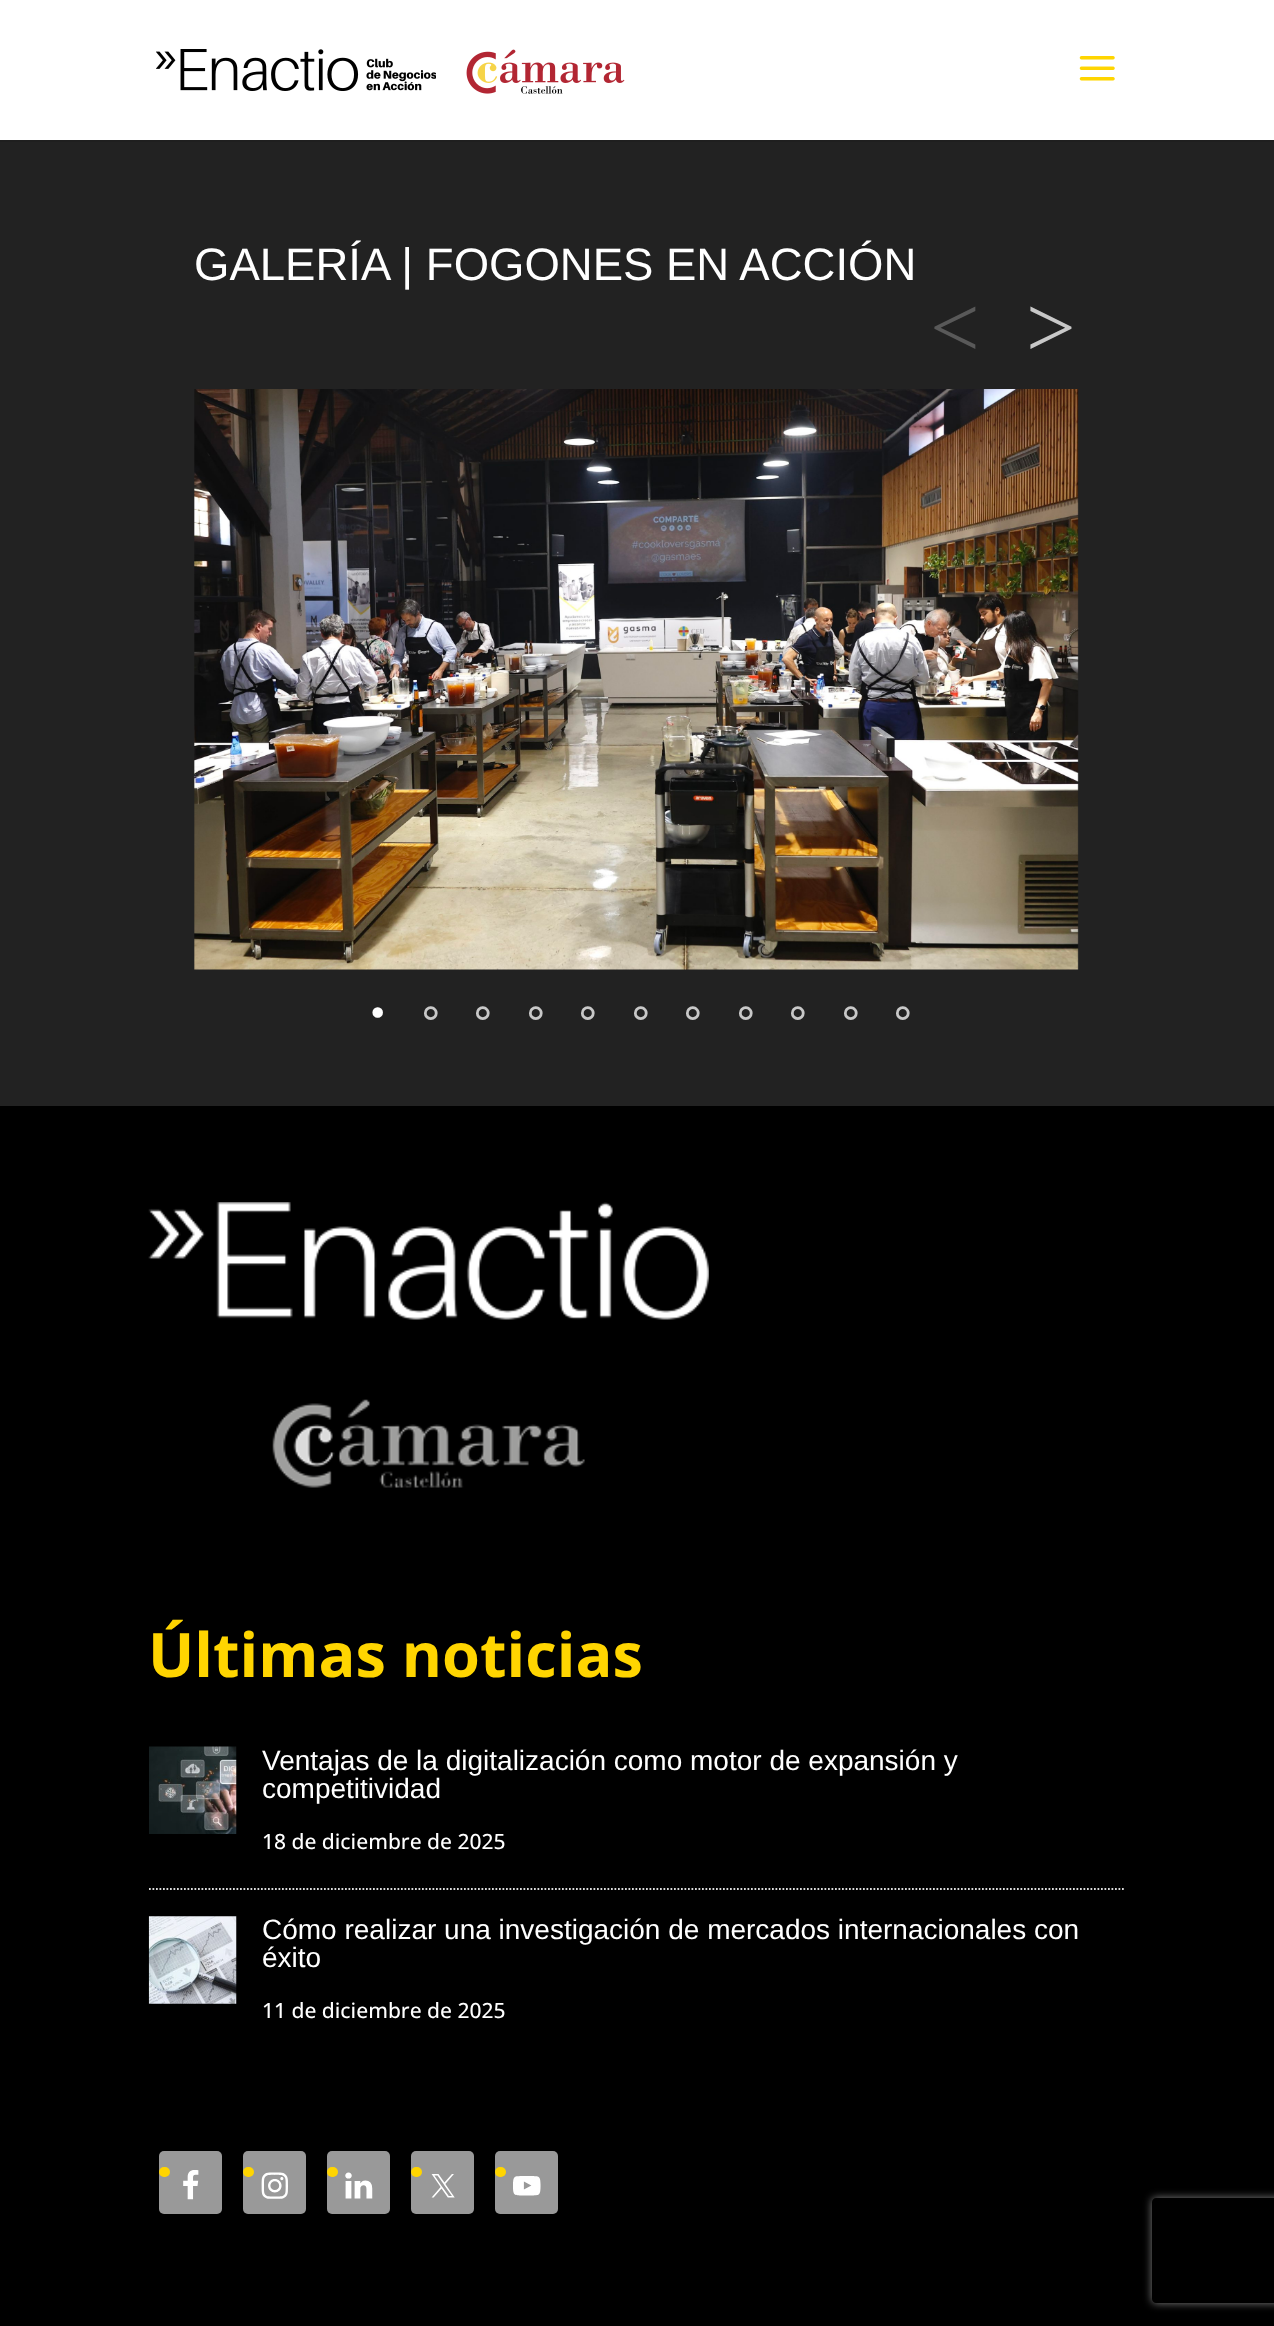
<svg xmlns="http://www.w3.org/2000/svg" width="1274" height="2326">
<defs>
<clipPath id="clip1"><path d="M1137 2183h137v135h-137zm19 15h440c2 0 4 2 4 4v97c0 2-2 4-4 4h-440c-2 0-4-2-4-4v-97c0-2 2-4 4-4z" clip-rule="evenodd"/></clipPath>
</defs>
<rect width="100%" height="100%" fill="#fff"/>
<rect y="140" width="1274" height="2" fill="#1f1f1f"/>
<image x="156" y="49" width="280" height="42" href="media/1.png"/>
<image x="466" y="49" width="159" height="45" href="media/2.png"/>
<image x="1079" y="56" width="36" height="25" href="media/3.png"/>
<rect y="142" width="1274" height="964" fill="#222"/>
<text x="194" y="280" style="font-family:Liberation Sans;font-size:45.5px;fill:#fff">GALERÍA | FOGONES EN ACCIÓN</text>
<text x="930" y="357" style="font-family:Liberation Serif;font-size:88px;fill:#595959">&lt;</text>
<text x="1026" y="357" style="font-family:Liberation Serif;font-size:88px;fill:#c8c8c8">&gt;</text>
<image x="194" y="389" width="885" height="581" href="media/4.png"/>
<text x="370" y="1027" style="font-family:Liberation Serif;font-size:44px;fill:#fff">•</text>
<text x="417" y="1027" style="font-family:DejaVu Sans;font-size:44px;fill:#c8c8c8">∘</text>
<text x="469" y="1027" style="font-family:DejaVu Sans;font-size:44px;fill:#c8c8c8">∘</text>
<text x="522" y="1027" style="font-family:DejaVu Sans;font-size:44px;fill:#c8c8c8">∘</text>
<text x="574" y="1027" style="font-family:DejaVu Sans;font-size:44px;fill:#c8c8c8">∘</text>
<text x="627" y="1027" style="font-family:DejaVu Sans;font-size:44px;fill:#c8c8c8">∘</text>
<text x="679" y="1027" style="font-family:DejaVu Sans;font-size:44px;fill:#c8c8c8">∘</text>
<text x="732" y="1027" style="font-family:DejaVu Sans;font-size:44px;fill:#c8c8c8">∘</text>
<text x="784" y="1027" style="font-family:DejaVu Sans;font-size:44px;fill:#c8c8c8">∘</text>
<text x="837" y="1027" style="font-family:DejaVu Sans;font-size:44px;fill:#c8c8c8">∘</text>
<text x="889" y="1027" style="font-family:DejaVu Sans;font-size:44px;fill:#c8c8c8">∘</text>
<rect y="1106" width="1274" height="1220" fill="#000"/>
<image x="148" y="1202" width="561" height="286" href="media/5.png"/>
<text x="148" y="1677" style="font-family:Open Sans;font-size:61.25px;font-weight:bold;fill:#ffd500">Últimas noticias</text>
<path d="M149 1889h976" fill="none" stroke="#ddd" stroke-width="1.8" stroke-dasharray="1.75 1.75"/>
<image x="149" y="1746" width="88" height="88" href="media/6.png"/>
<text x="262" y="1770" style="font-family:Liberation Sans;font-size:28px;fill:#fff">Ventajas de la digitalización como motor de expansión y</text>
<text x="262" y="1798" style="font-family:Liberation Sans;font-size:28px;fill:#fff">competitividad</text>
<text x="262" y="1849" style="font-family:Open Sans;font-size:21px;font-weight:500;fill:#fff">18 de diciembre de 2025</text>
<image x="148" y="1916" width="89" height="88" href="media/7.png"/>
<text x="262" y="1939" style="font-family:Liberation Sans;font-size:28px;fill:#fff">Cómo realizar una investigación de mercados internacionales con</text>
<text x="262" y="1967" style="font-family:Liberation Sans;font-size:28px;fill:#fff">éxito</text>
<text x="262" y="2018" style="font-family:Open Sans;font-size:21px;font-weight:500;fill:#fff">11 de diciembre de 2025</text>
<rect x="159" y="2151" width="63" height="63" rx="5" fill="#999"/>
<image x="183" y="2170" width="16" height="30" href="media/8.png"/>
<rect x="159" y="2167" width="11" height="10" rx="5" fill="#ffd500"/>
<rect x="243" y="2151" width="63" height="63" rx="5" fill="#999"/>
<image x="261" y="2172" width="27" height="27" href="media/9.png"/>
<rect x="243" y="2167" width="11" height="10" rx="5" fill="#ffd500"/>
<rect x="327" y="2151" width="63" height="63" rx="5" fill="#999"/>
<image x="345" y="2172" width="28" height="27" href="media/10.png"/>
<rect x="327" y="2167" width="11" height="10" rx="5" fill="#ffd500"/>
<rect x="411" y="2151" width="63" height="63" rx="5" fill="#999"/>
<image x="431" y="2174" width="24" height="24" href="media/11.png"/>
<rect x="411" y="2167" width="11" height="10" rx="5" fill="#ffd500"/>
<rect x="495" y="2151" width="63" height="63" rx="5" fill="#999"/>
<image x="513" y="2176" width="28" height="20" href="media/12.png"/>
<rect x="495" y="2167" width="11" height="10" rx="5" fill="#ffd500"/>
<g clip-path="url(#clip1)">
<rect x="1152" y="2198" width="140" height="105" rx="4" fill="#808080" filter="blur(4.5px)"/>
</g>
</svg>
